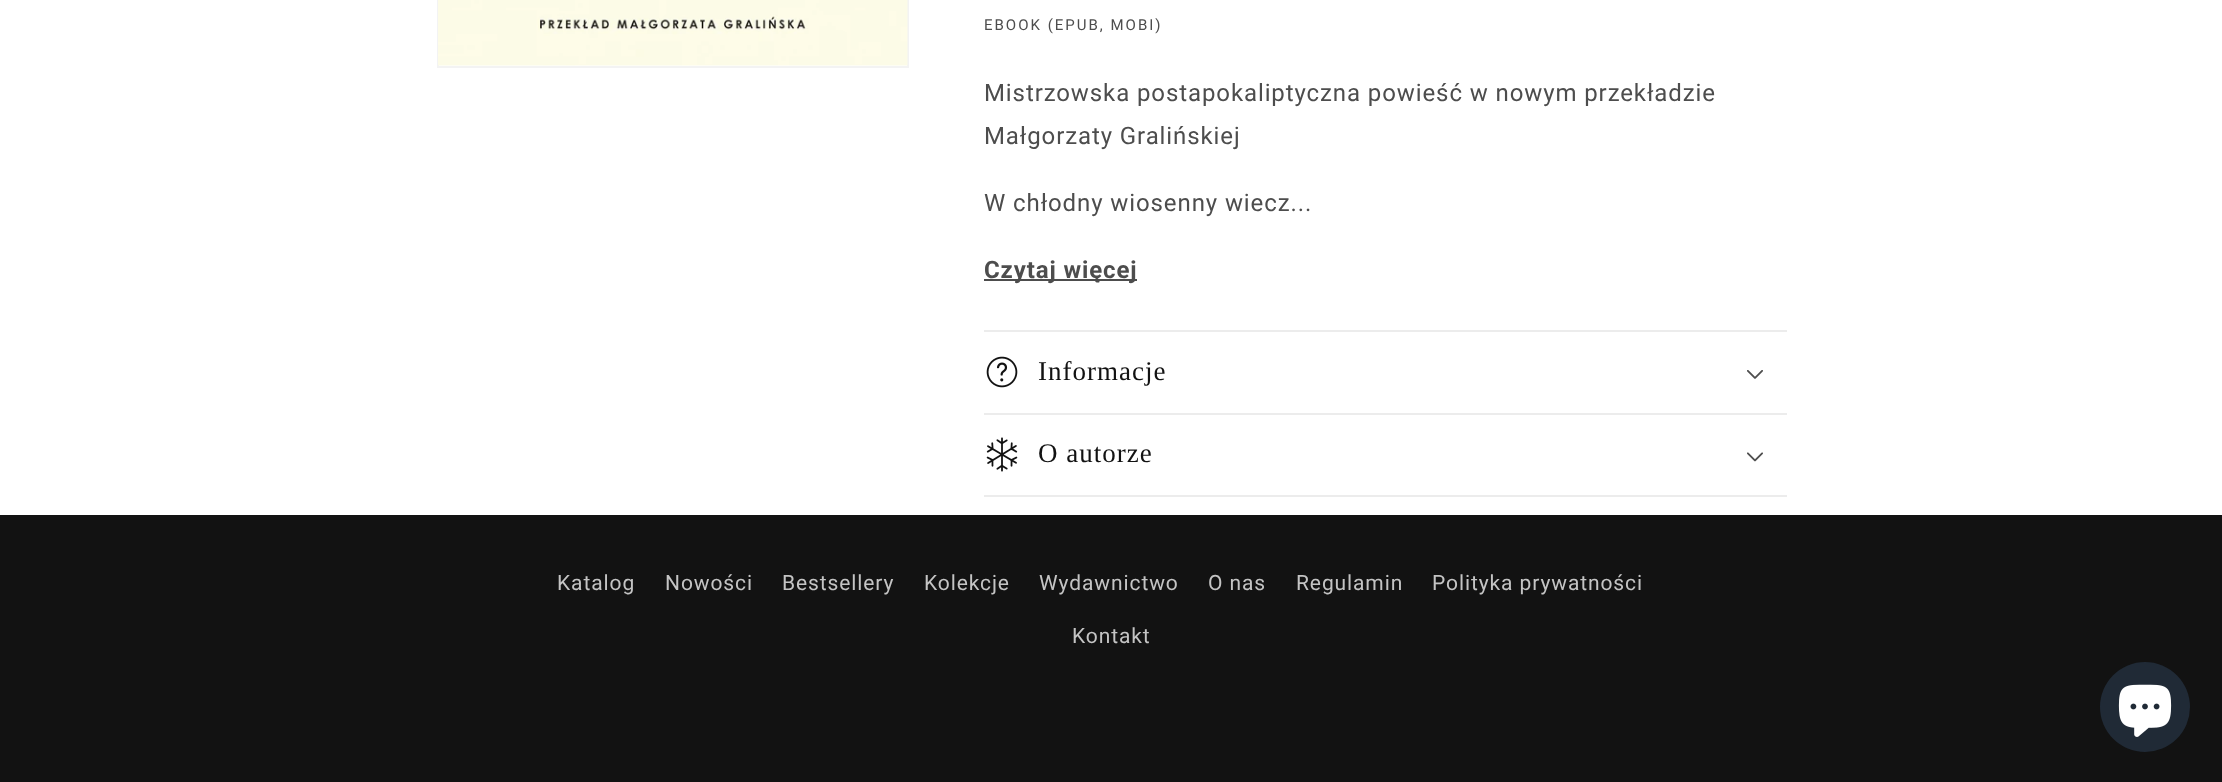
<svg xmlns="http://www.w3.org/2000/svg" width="2222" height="782">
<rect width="100%" height="100%" fill="#fff"/>
<rect x="438" y="-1" width="470" height="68" fill="none" stroke="#f3f3f3" stroke-width="2"/>
<image x="438" y="0" width="470" height="66" href="media/1.png"/>
<text x="984" y="30" style="font-family:Roboto;font-size:15px;letter-spacing:2px;fill:#4d4d4d">EBOOK (EPUB, MOBI)</text>
<text x="984" y="101" style="font-family:Roboto;font-size:24px;letter-spacing:0.9px;fill:#4d4d4d">Mistrzowska postapokaliptyczna powieść w nowym przekładzie</text>
<text x="984" y="144" style="font-family:Roboto;font-size:24px;letter-spacing:0.9px;fill:#4d4d4d">Małgorzaty Gralińskiej</text>
<text x="984" y="211" style="font-family:Roboto;font-size:24px;letter-spacing:0.9px;fill:#4d4d4d">W chłodny wiosenny wiecz...</text>
<rect x="984" y="279" width="153" height="2" fill="#4d4d4d"/>
<text x="984" y="278" style="font-family:Roboto;font-size:24px;font-weight:bold;letter-spacing:0.9px;fill:#4d4d4d">Czytaj więcej</text>
<rect x="984" y="330" width="803" height="2" fill="#ececec"/>
<rect x="984" y="413" width="803" height="2" fill="#ececec"/>
<image x="986" y="356" width="32" height="32" href="media/2.png"/>
<text x="1038" y="380" style="font-family:Liberation Serif;font-size:27px;letter-spacing:1px;fill:#121212">Informacje</text>
<image x="1747" y="370" width="16" height="9" href="media/3.png"/>
<rect x="984" y="495" width="803" height="2" fill="#ececec"/>
<image x="986" y="437" width="32" height="35" href="media/4.png"/>
<text x="1038" y="462" style="font-family:Liberation Serif;font-size:27px;letter-spacing:1px;fill:#121212">O autorze</text>
<image x="1747" y="452" width="16" height="10" href="media/5.png"/>
<rect y="515" width="2222" height="267" fill="#121212"/>
<text x="557" y="590" style="font-family:Roboto;font-size:21px;letter-spacing:0.9px;fill:#c4c4c4">Katalog</text>
<text x="665" y="590" style="font-family:Roboto;font-size:21px;letter-spacing:0.9px;fill:#c4c4c4">Nowości</text>
<text x="782" y="590" style="font-family:Roboto;font-size:21px;letter-spacing:0.9px;fill:#c4c4c4">Bestsellery</text>
<text x="924" y="590" style="font-family:Roboto;font-size:21px;letter-spacing:0.9px;fill:#c4c4c4">Kolekcje</text>
<text x="1039" y="590" style="font-family:Roboto;font-size:21px;letter-spacing:0.9px;fill:#c4c4c4">Wydawnictwo</text>
<text x="1208" y="590" style="font-family:Roboto;font-size:21px;letter-spacing:0.9px;fill:#c4c4c4">O nas</text>
<text x="1296" y="590" style="font-family:Roboto;font-size:21px;letter-spacing:0.9px;fill:#c4c4c4">Regulamin</text>
<text x="1432" y="590" style="font-family:Roboto;font-size:21px;letter-spacing:0.9px;fill:#c4c4c4">Polityka prywatności</text>
<text x="1072" y="643" style="font-family:Roboto;font-size:21px;letter-spacing:0.9px;fill:#c4c4c4">Kontakt</text>
<circle cx="2145" cy="707" r="45" fill="#202a36"/>
<image x="2118" y="684" width="54" height="53" href="media/6.png"/>
</svg>
